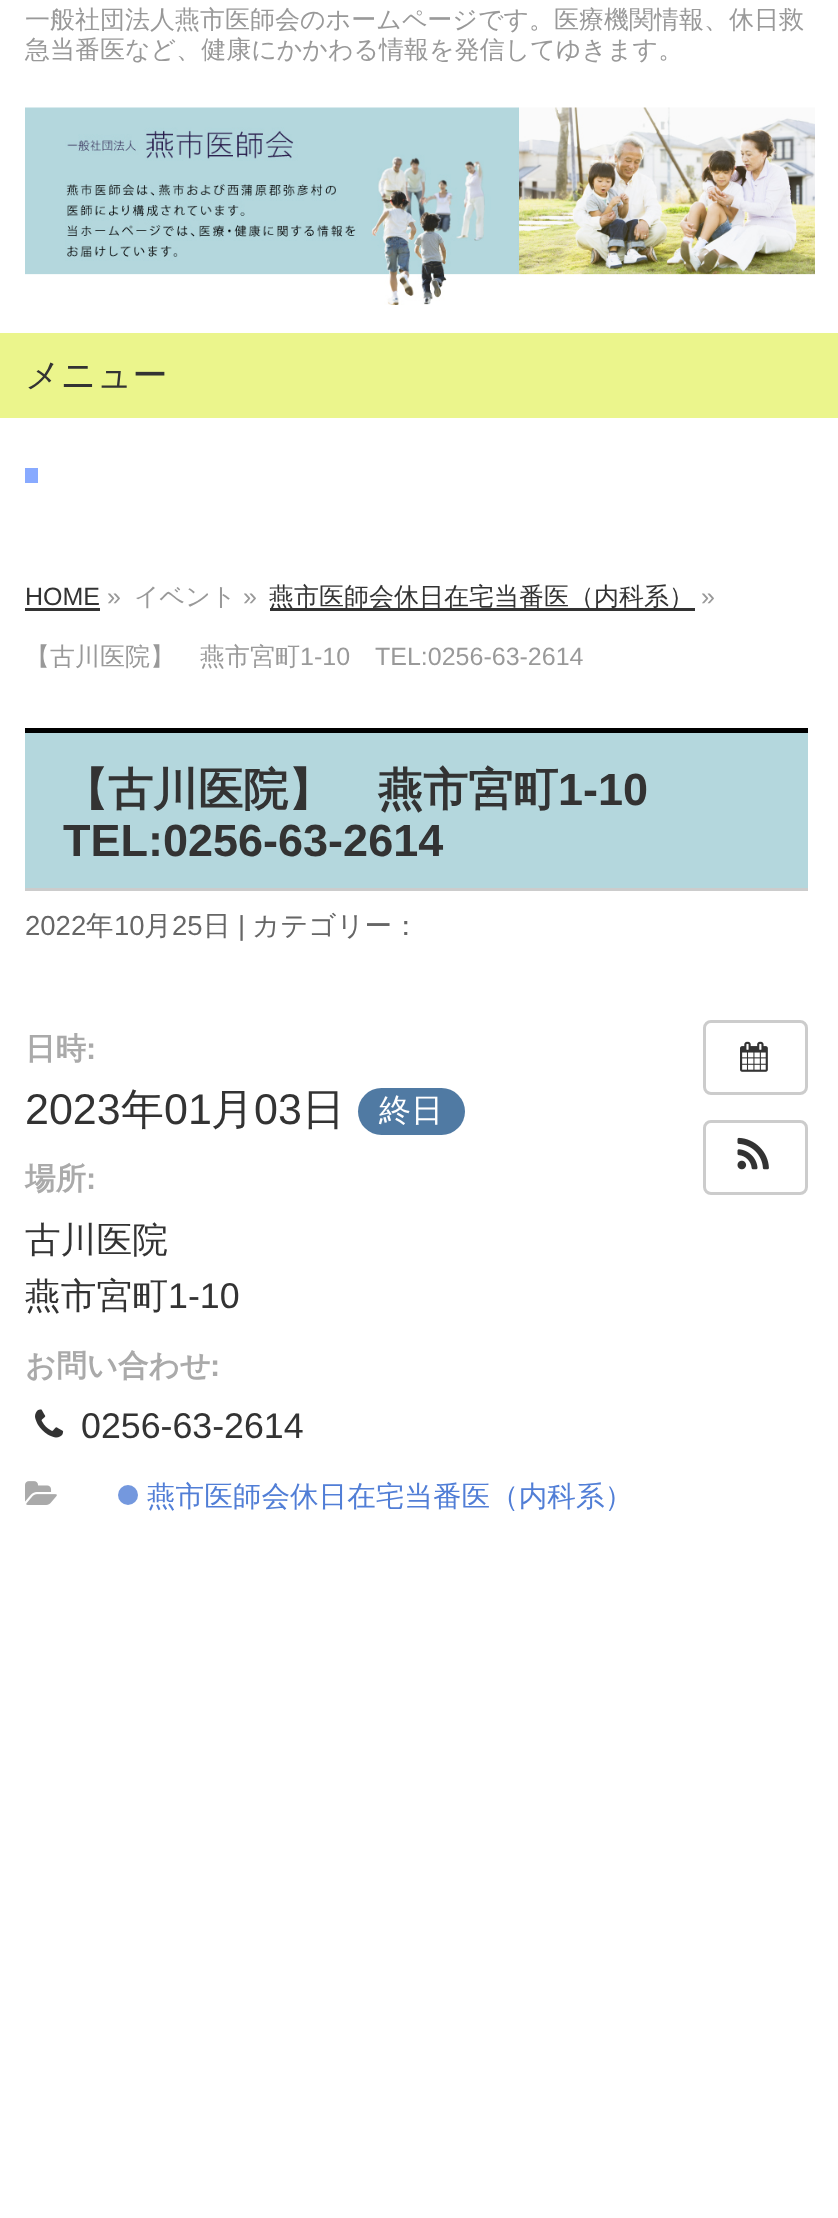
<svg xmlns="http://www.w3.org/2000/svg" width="838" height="2218">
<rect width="100%" height="100%" fill="#fff"/>
<text x="25" y="28" style="font-family:WenQuanYi Zen Hei;font-size:25px;font-weight:500;fill:#999">一般社団法人燕市医師会のホームページです。医療機関情報、休日救</text>
<text x="25" y="58" style="font-family:WenQuanYi Zen Hei;font-size:25px;font-weight:500;fill:#999">急当番医など、健康にかかわる情報を発信してゆきます。</text>
<image x="25" y="107" width="790" height="198" href="media/1.png"/>
<rect y="333" width="838" height="85" fill="#ebf58c"/>
<text x="25" y="387" style="font-family:WenQuanYi Zen Hei;font-size:35px;font-weight:500;fill:#333">メニュー</text>
<rect x="25" y="468" width="13" height="15" fill="#8af"/>
<text x="25" y="605" style="font-family:Liberation Sans;font-size:25px;fill:#333">HOME</text>
<rect x="25" y="608" width="75" height="3" fill="#333"/>
<text x="107" y="605" style="font-family:Liberation Sans;font-size:25px;fill:#999">»</text>
<text x="134" y="605" style="font-family:WenQuanYi Zen Hei;font-size:25px;font-weight:500;fill:#999">イベント</text>
<text x="243" y="605" style="font-family:Liberation Sans;font-size:25px;fill:#999">»</text>
<rect x="270" y="608" width="425" height="3" fill="#333"/>
<text x="269" y="605" style="font-family:WenQuanYi Zen Hei;font-size:25px;font-weight:500;fill:#333">燕市医師会休日在宅当番医（内科系）</text>
<text x="701" y="605" style="font-family:Liberation Sans;font-size:25px;fill:#999">»</text>
<text x="25" y="665" style="font-family:WenQuanYi Zen Hei;font-size:25px;font-weight:500;fill:#999">【古川医院】　燕市宮町</text>
<text x="300" y="665" style="font-family:Liberation Sans;font-size:25px;fill:#999">1-10</text>
<text x="375" y="665" style="font-family:Liberation Sans;font-size:25px;fill:#999">TEL:0256-63-2614</text>
<rect x="25" y="733" width="783" height="155" fill="#b4d7dd"/>
<rect x="25" y="728" width="783" height="5" fill="#000"/>
<rect x="25" y="888" width="783" height="3" fill="#ccc"/>
<text x="63" y="805" style="font-family:WenQuanYi Zen Hei;font-size:45px;font-weight:bold;fill:#333">【古川医院】　燕市宮町</text>
<text x="558" y="805" style="font-family:Liberation Sans;font-size:45px;font-weight:bold;fill:#333">1-10</text>
<text x="63" y="856" style="font-family:Liberation Sans;font-size:45px;font-weight:bold;fill:#333">TEL:0256-63-2614</text>
<text x="25" y="935" style="font-family:Liberation Sans;font-size:27.5px;fill:#666">2022</text>
<text x="86" y="935" style="font-family:WenQuanYi Zen Hei;font-size:27.5px;font-weight:500;fill:#666">年</text>
<text x="114" y="935" style="font-family:Liberation Sans;font-size:27.5px;fill:#666">10</text>
<text x="144" y="935" style="font-family:WenQuanYi Zen Hei;font-size:27.5px;font-weight:500;fill:#666">月</text>
<text x="172" y="935" style="font-family:Liberation Sans;font-size:27.5px;fill:#666">25</text>
<text x="203" y="935" style="font-family:WenQuanYi Zen Hei;font-size:27.5px;font-weight:500;fill:#666">日</text>
<text x="238" y="935" style="font-family:Liberation Sans;font-size:27.5px;fill:#666">|</text>
<text x="252" y="935" style="font-family:WenQuanYi Zen Hei;font-size:27.5px;font-weight:500;fill:#666">カテゴリー：</text>
<text x="25" y="1059" style="font-family:WenQuanYi Zen Hei;font-size:30.5px;font-weight:bold;fill:#aaa">日時</text>
<text x="86" y="1059" style="font-family:Liberation Sans;font-size:30.5px;font-weight:bold;fill:#aaa">:</text>
<text x="25" y="1124" style="font-family:Liberation Sans;font-size:43px;fill:#333">2023</text>
<text x="121" y="1124" style="font-family:WenQuanYi Zen Hei;font-size:43px;font-weight:500;fill:#333">年</text>
<text x="164" y="1124" style="font-family:Liberation Sans;font-size:43px;fill:#333">01</text>
<text x="211" y="1124" style="font-family:WenQuanYi Zen Hei;font-size:43px;font-weight:500;fill:#333">月</text>
<text x="254" y="1124" style="font-family:Liberation Sans;font-size:43px;fill:#333">03</text>
<text x="302" y="1124" style="font-family:WenQuanYi Zen Hei;font-size:43px;font-weight:500;fill:#333">日</text>
<rect x="358" y="1088" width="107" height="47" rx="23.5" fill="#507aa3"/>
<text x="379" y="1121" style="font-family:WenQuanYi Zen Hei;font-size:32px;font-weight:500;fill:#fff">終日</text>
<text x="25" y="1189" style="font-family:WenQuanYi Zen Hei;font-size:30.5px;font-weight:bold;fill:#aaa">場所</text>
<text x="86" y="1189" style="font-family:Liberation Sans;font-size:30.5px;font-weight:bold;fill:#aaa">:</text>
<text x="25" y="1252" style="font-family:WenQuanYi Zen Hei;font-size:35.75px;font-weight:500;fill:#333">古川医院</text>
<text x="25" y="1308" style="font-family:WenQuanYi Zen Hei;font-size:35.75px;font-weight:500;fill:#333">燕市宮町</text>
<text x="168" y="1308" style="font-family:Liberation Sans;font-size:35.75px;fill:#333">1-10</text>
<text x="25" y="1376" style="font-family:WenQuanYi Zen Hei;font-size:30.5px;font-weight:bold;fill:#aaa">お問い合わせ</text>
<text x="210" y="1376" style="font-family:Liberation Sans;font-size:30.5px;font-weight:bold;fill:#aaa">:</text>
<image x="35" y="1409" width="29" height="29" href="media/2.png"/>
<text x="81" y="1438" style="font-family:Liberation Sans;font-size:35.75px;fill:#333">0256-63-2614</text>
<image x="25" y="1481" width="32" height="24" href="media/3.png"/>
<circle cx="128" cy="1495" r="10" fill="#7498de"/>
<text x="147" y="1506" style="font-family:WenQuanYi Zen Hei;font-size:28.6px;font-weight:500;fill:#517ed6">燕市医師会休日在宅当番医（内科系）</text>
<rect x="704.5" y="1021.5" width="102" height="72" rx="6.5" fill="none" stroke="#ccc" stroke-width="3"/>
<image x="740" y="1041" width="28" height="31" href="media/4.png"/>
<rect x="704.5" y="1121.5" width="102" height="72" rx="6.5" fill="none" stroke="#ccc" stroke-width="3"/>
<image x="737" y="1137" width="32" height="33" href="media/5.png"/>
</svg>
